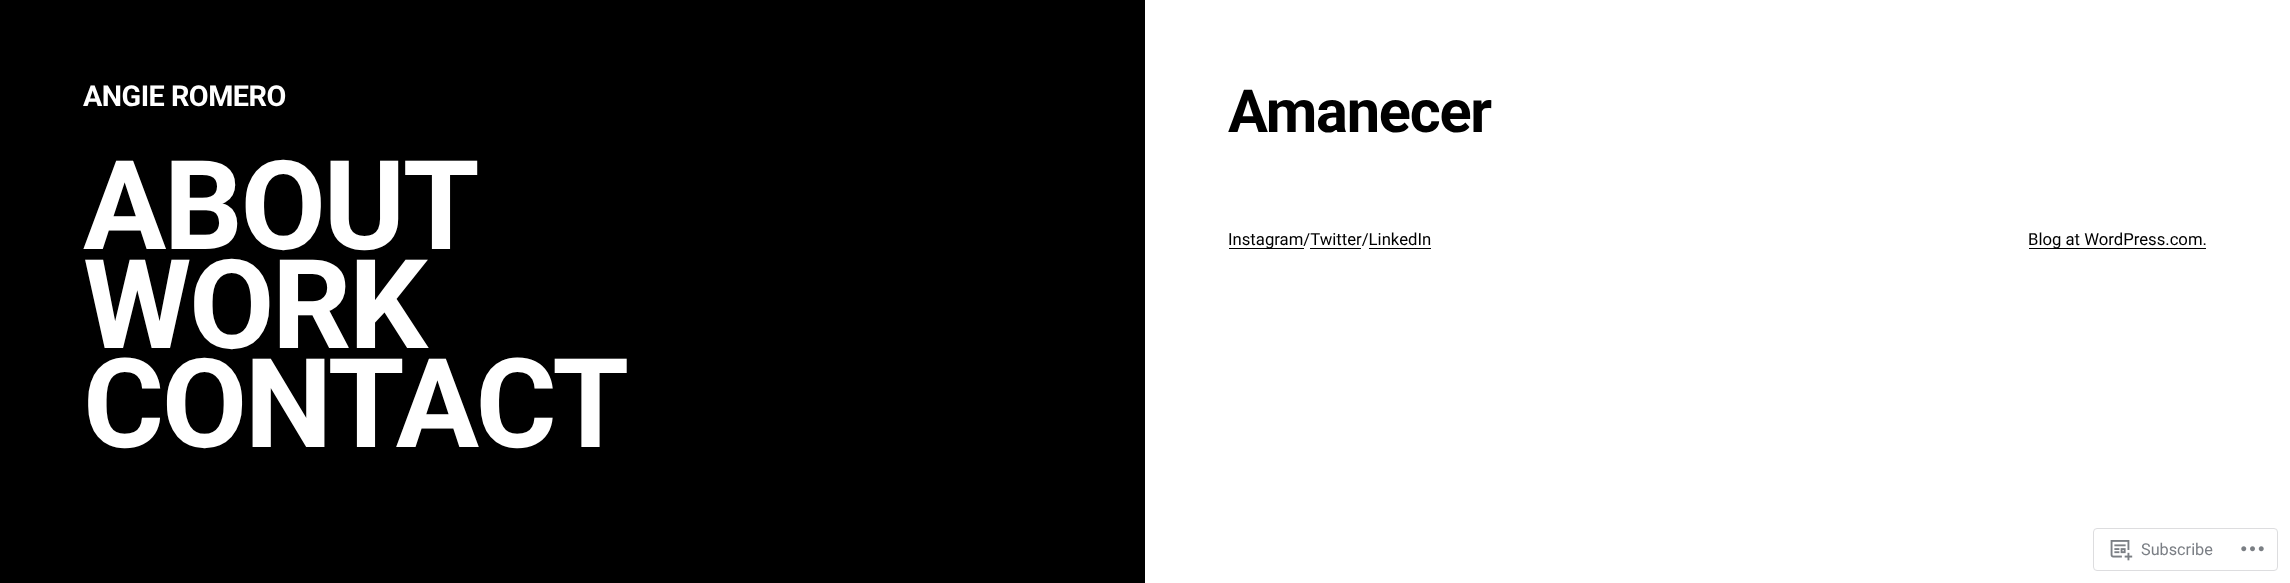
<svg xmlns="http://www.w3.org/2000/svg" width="2290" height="583">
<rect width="100%" height="100%" fill="#fff"/>
<rect width="1145" height="583" fill="#000"/>
<text x="83" y="106" style="font-family:Roboto;font-size:28.75px;font-weight:bold;letter-spacing:-0.5px;fill:#fff">ANGIE ROMERO</text>
<text x="83" y="249" style="font-family:Roboto;font-size:124px;font-weight:bold;letter-spacing:-2.5px;fill:#fff">ABOUT</text>
<text x="83" y="348" style="font-family:Roboto;font-size:124px;font-weight:bold;letter-spacing:-2.5px;fill:#fff">WORK</text>
<text x="83" y="447" style="font-family:Roboto;font-size:124px;font-weight:bold;letter-spacing:-2.5px;fill:#fff">CONTACT</text>
<text x="1228" y="132" style="font-family:Roboto;font-size:59.5px;font-weight:bold;letter-spacing:-1.25px;fill:#000">Amanecer</text>
<rect x="1229" y="248" width="75" height="1" fill="#000"/>
<text x="1228" y="245" style="font-family:Roboto;font-size:16.7px;fill:#000">Instagram/Twitter/LinkedIn</text>
<rect x="1310" y="248" width="51" height="1" fill="#000"/>
<rect x="1369" y="248" width="62" height="1" fill="#000"/>
<rect x="2029" y="248" width="177" height="1" fill="#000"/>
<text x="2028" y="245" style="font-family:Roboto;font-size:16.7px;fill:#000">Blog at WordPress.com.</text>
<rect x="2093.5" y="528.5" width="184" height="42" rx="3.5" fill="none" stroke="#dddddf"/>
<image x="2110" y="540" width="23" height="21" href="media/1.png"/>
<text x="2141" y="555" style="font-family:Roboto;font-size:16.25px;fill:#7b7f85">Subscribe</text>
<image x="2241" y="546" width="23" height="6" href="media/2.png"/>
</svg>
